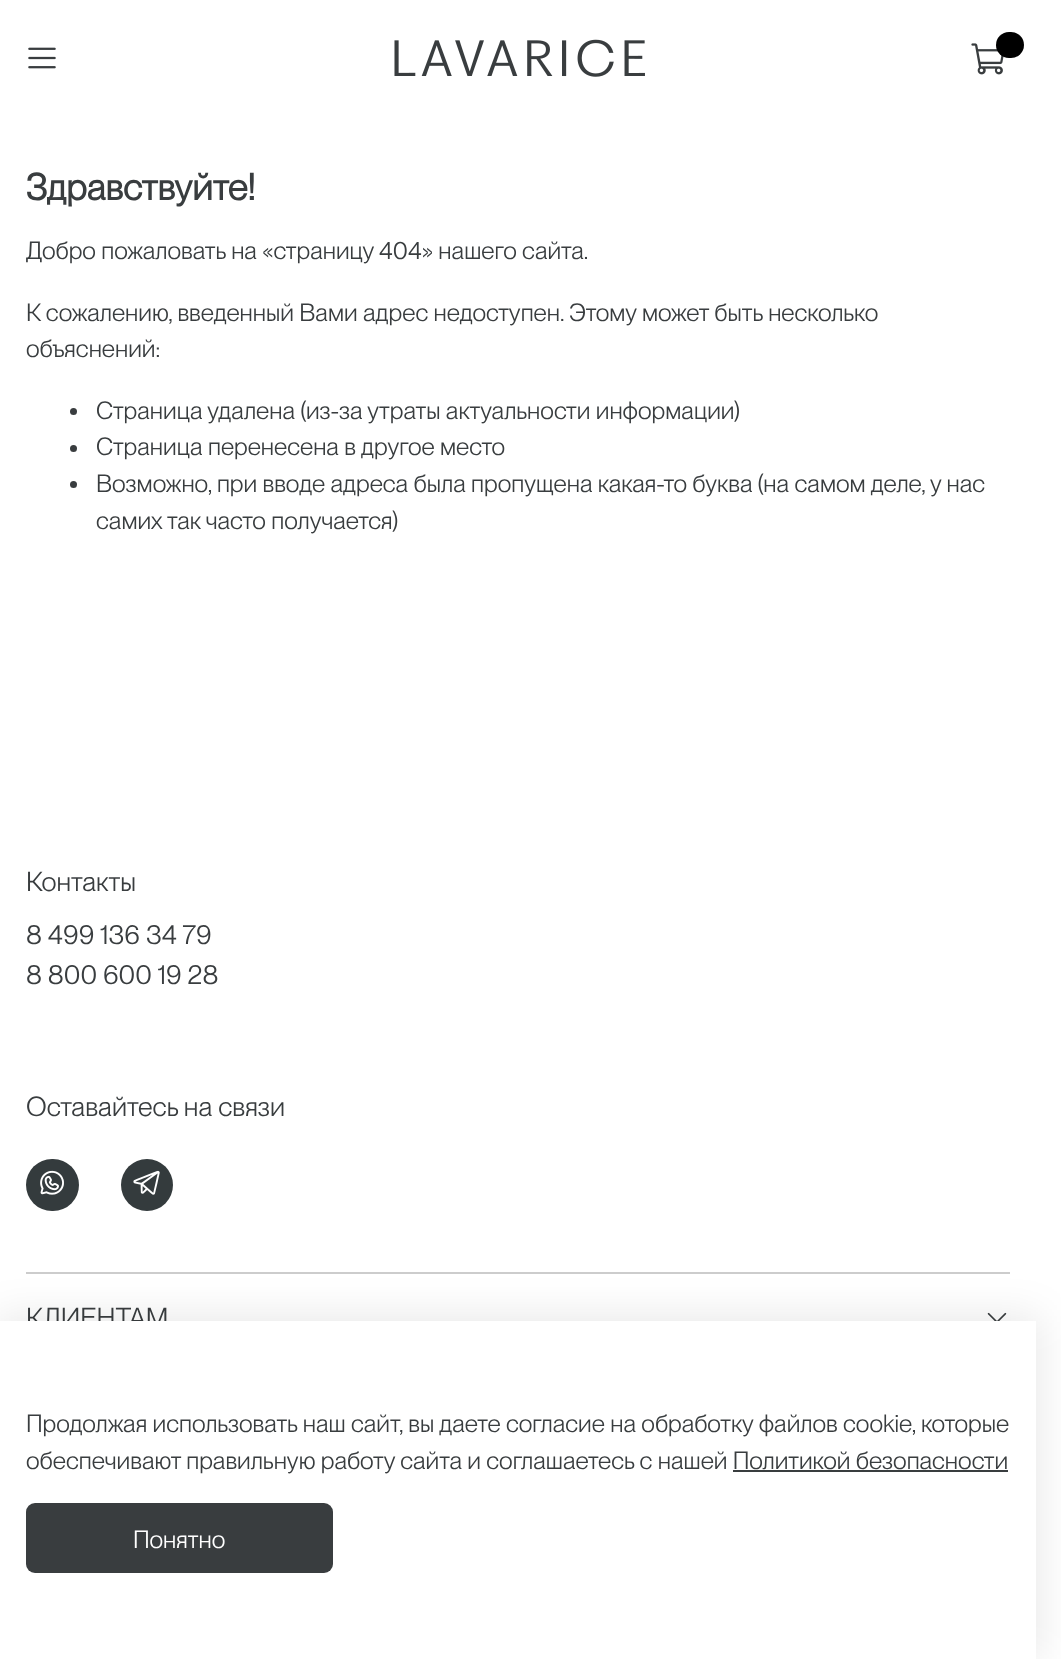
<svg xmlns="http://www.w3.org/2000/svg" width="1061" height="1659">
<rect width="100%" height="100%" fill="#fff"/>
<image x="28" y="47" width="28" height="22" href="media/1.png"/>
<image x="394" y="39" width="251" height="38" href="media/2.png"/>
<image x="971" y="43" width="33" height="32" href="media/3.png"/>
<rect x="996" y="32" width="28" height="26" rx="13" fill="#000"/>
<text x="26" y="200" style="font-family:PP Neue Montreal;font-size:36.75px;font-weight:bold;fill:#393d3f">Здравствуйте!</text>
<text x="26" y="259" style="font-family:PP Neue Montreal;font-size:24.5px;fill:#393d3f">Добро пожаловать на «страницу 404» нашего сайта.</text>
<text x="26" y="321" style="font-family:PP Neue Montreal;font-size:24.5px;fill:#393d3f">К сожалению, введенный Вами адрес недоступен. Этому может быть несколько</text>
<text x="26" y="357" style="font-family:PP Neue Montreal;font-size:24.5px;fill:#393d3f">объяснений:</text>
<circle cx="73.5" cy="411.5" r="3.5" fill="#393d3f"/>
<text x="96" y="419" style="font-family:PP Neue Montreal;font-size:24.5px;fill:#393d3f">Страница удалена (из-за утраты актуальности информации)</text>
<circle cx="73.5" cy="448.5" r="3.5" fill="#393d3f"/>
<text x="96" y="455" style="font-family:PP Neue Montreal;font-size:24.5px;fill:#393d3f">Страница перенесена в другое место</text>
<circle cx="73.5" cy="484.5" r="3.5" fill="#393d3f"/>
<text x="96" y="492" style="font-family:PP Neue Montreal;font-size:24.5px;fill:#393d3f">Возможно, при вводе адреса была пропущена какая-то буква (на самом деле, у нас</text>
<text x="96" y="529" style="font-family:PP Neue Montreal;font-size:24.5px;fill:#393d3f">самих так часто получается)</text>
<text x="26" y="891" style="font-family:PP Neue Montreal;font-size:27px;fill:#393d3f">Контакты</text>
<text x="26" y="944" style="font-family:PP Neue Montreal;font-size:27px;fill:#393d3f">8 499 136 34 79</text>
<text x="26" y="984" style="font-family:PP Neue Montreal;font-size:27px;fill:#393d3f">8 800 600 19 28</text>
<text x="26" y="1116" style="font-family:PP Neue Montreal;font-size:27px;fill:#393d3f">Оставайтесь на связи</text>
<rect x="26" y="1159" width="53" height="52" rx="26" fill="#343b3d"/>
<image x="40" y="1170" width="24" height="25" href="media/4.png"/>
<circle cx="147" cy="1185" r="26" fill="#343b3d"/>
<image x="133" y="1170" width="27" height="25" href="media/5.png"/>
<rect x="26" y="1272" width="984" height="2" fill="#ccc"/>
<text x="26" y="1327" style="font-family:PP Neue Montreal;font-size:27px;fill:#393d3f">КЛИЕНТАМ</text>
<image x="987" y="1312" width="20" height="9" href="media/6.png"/>
<rect x="-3" y="1316" width="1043" height="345" fill="#00000017" filter="blur(20px)"/>
<rect y="1321" width="1036" height="338" fill="#fff"/>
<text x="26" y="1432" style="font-family:PP Neue Montreal;font-size:24.5px;fill:#393d3f">Продолжая использовать наш сайт, вы даете согласие на обработку файлов cookie, которые</text>
<text x="26" y="1469" style="font-family:PP Neue Montreal;font-size:24.5px;fill:#393d3f">обеспечивают правильную работу сайта и соглашаетесь с нашей Политикой безопасности</text>
<rect x="733" y="1470" width="275" height="2" fill="#393d3f"/>
<rect x="26" y="1503" width="307" height="70" rx="9" fill="#393d3f"/>
<text x="133" y="1548" style="font-family:PP Neue Montreal;font-size:24.5px;fill:#fff">Понятно</text>
</svg>
